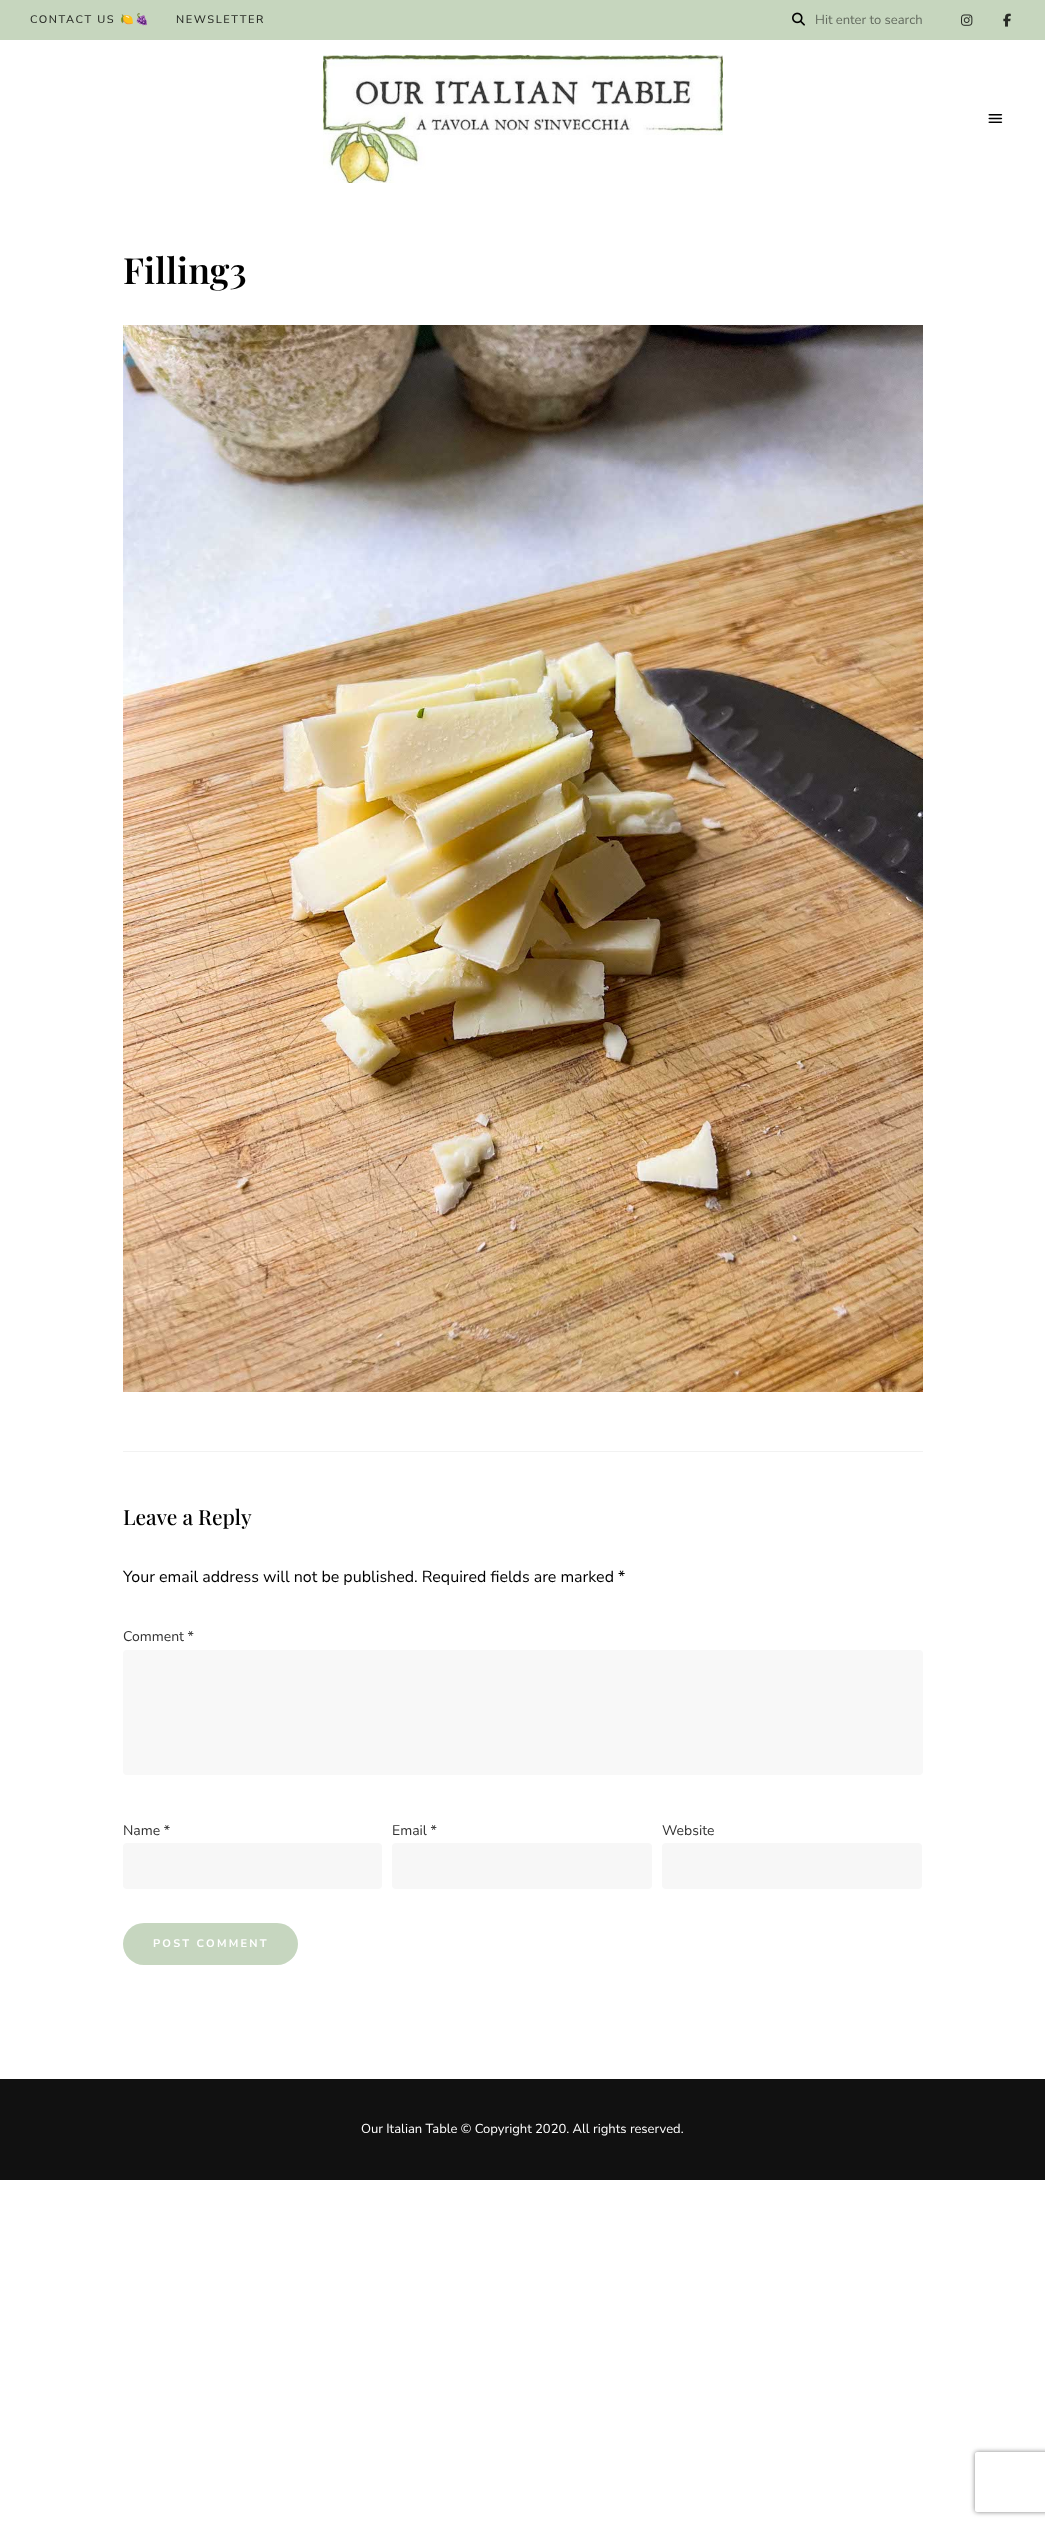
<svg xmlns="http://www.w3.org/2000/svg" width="1045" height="2526">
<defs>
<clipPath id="clip1"><path d="M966 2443h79v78h-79zm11 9h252c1 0 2 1 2 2v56c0 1-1 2-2 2h-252c-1 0-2-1-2-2v-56c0-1 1-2 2-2z" clip-rule="evenodd"/></clipPath>
</defs>
<rect width="100%" height="100%" fill="#fff"/>
<rect width="1045" height="40" fill="#c6d6be"/>
<text x="30" y="23" style="font-family:Nunito Sans;font-size:11px;font-weight:500;letter-spacing:1.6px;fill:#282b26">CONTACT US</text>
<text x="120" y="23" style="font-family:Noto Color Emoji;font-size:11px;letter-spacing:1.6px;fill:#282b26">🍋🍇</text>
<text x="176" y="23" style="font-family:Nunito Sans;font-size:11px;font-weight:500;letter-spacing:1.6px;fill:#282b26">NEWSLETTER</text>
<image x="792" y="12" width="13" height="14" href="media/1.png"/>
<text x="815" y="24" style="font-family:Nunito Sans;font-size:13px;fill:#636b5f">Hit enter to search</text>
<image x="961" y="14" width="12" height="12" href="media/2.png"/>
<image x="1003" y="13" width="8" height="14" href="media/3.png"/>
<image x="323" y="55" width="400" height="128" href="media/4.png"/>
<image x="988" y="114" width="15" height="9" href="media/5.png"/>
<text x="123" y="284" style="font-family:Playfair Display;font-size:36px;font-weight:600;fill:#000">Filling3</text>
<image x="123" y="325" width="800" height="1067" href="media/6.png"/>
<rect x="123" y="1451" width="800" height="1" fill="#f2f2f2"/>
<text x="123" y="1525" style="font-family:Playfair Display;font-size:21px;font-weight:500;fill:#000">Leave a Reply</text>
<text x="123" y="1582" style="font-family:Nunito Sans;font-size:16px;fill:#000">Your email address will not be published. Required fields are marked *</text>
<text x="123" y="1641" style="font-family:Nunito Sans;font-size:14px;fill:#333">Comment *</text>
<rect x="123" y="1650" width="800" height="125" rx="4" fill="#f8f8f8"/>
<text x="123" y="1835" style="font-family:Nunito Sans;font-size:14px;fill:#333">Name *</text>
<rect x="123" y="1843" width="259" height="46" rx="4" fill="#f7f7f7"/>
<text x="392" y="1835" style="font-family:Nunito Sans;font-size:14px;fill:#333">Email *</text>
<rect x="392" y="1843" width="260" height="46" rx="4" fill="#f7f7f7"/>
<text x="662" y="1835" style="font-family:Nunito Sans;font-size:14px;fill:#333">Website</text>
<rect x="662" y="1843" width="260" height="46" rx="4" fill="#f7f7f7"/>
<rect x="123" y="1923" width="175" height="42" rx="21" fill="#c6d6bf"/>
<text x="153" y="1947" style="font-family:Nunito Sans;font-size:11px;font-weight:bold;letter-spacing:2.25px;fill:#fff">POST COMMENT</text>
<rect y="2079" width="1045" height="101" fill="#111"/>
<text x="361" y="2133" style="font-family:Nunito Sans;font-size:13px;fill:#fff">Our Italian Table © Copyright 2020. All rights reserved.</text>
<g clip-path="url(#clip1)">
<rect x="975" y="2452" width="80" height="60" rx="2" fill="#808080" filter="blur(2.5px)"/>
</g>
</svg>
